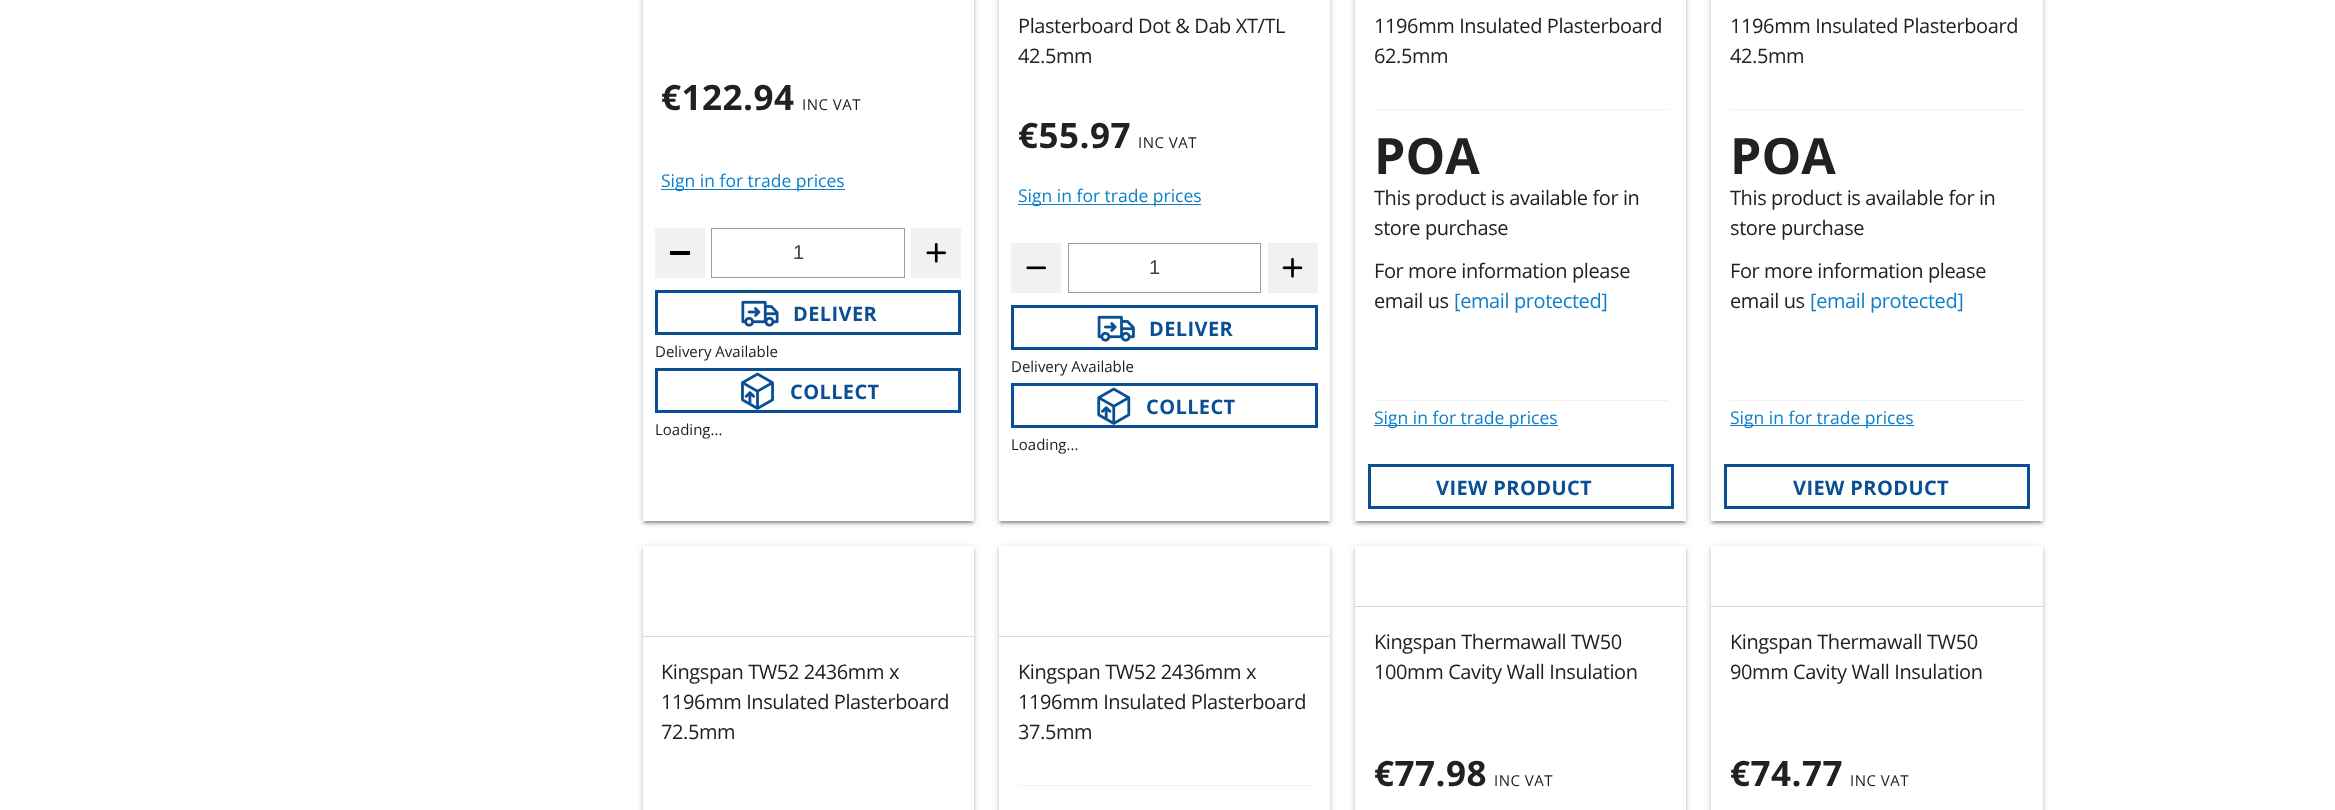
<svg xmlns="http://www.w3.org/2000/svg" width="2335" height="810">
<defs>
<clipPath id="clip1"><path d="M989 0h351v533h-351zm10-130h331v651h-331z" clip-rule="evenodd"/></clipPath>
<clipPath id="clip2"><rect x="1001" y="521" width="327" height="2"/></clipPath>
<clipPath id="clip3"><path d="M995 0h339v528h-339zm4-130h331v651h-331z" clip-rule="evenodd"/></clipPath>
<clipPath id="clip4"><path d="M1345 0h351v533h-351zm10-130h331v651h-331z" clip-rule="evenodd"/></clipPath>
<clipPath id="clip5"><rect x="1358" y="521" width="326" height="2"/></clipPath>
<clipPath id="clip6"><path d="M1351 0h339v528h-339zm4-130h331v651h-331z" clip-rule="evenodd"/></clipPath>
</defs>
<rect width="100%" height="100%" fill="#fff"/>
<rect x="643" y="-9" width="331" height="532" fill="#00000033" filter="blur(3px)"/>
<rect x="645" y="-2" width="326" height="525" fill="#0000001f" filter="blur(0.5px)"/>
<rect x="643" y="-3" width="331" height="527" fill="#00000024" filter="blur(1px)"/>
<rect x="643" width="331" height="521" fill="#fff"/>
<text x="661" y="110" style="font-family:Open Sans;font-size:35px;font-weight:bold;letter-spacing:0.5px;fill:#212121">€122.94</text>
<text x="802" y="110" style="font-family:Open Sans;font-size:15px;letter-spacing:0.5px;fill:#212121">INC VAT</text>
<rect x="661" y="189" width="184" height="1" fill="#0d7fca"/>
<text x="661" y="187" style="font-family:Open Sans;font-size:17.5px;fill:#0d7fca">Sign in for trade prices</text>
<rect x="655" y="228" width="50" height="50" fill="#f1f1f1"/>
<rect x="670" y="251" width="20" height="4" fill="#000"/>
<rect x="711.5" y="228.5" width="193" height="49" fill="none" stroke="#9d9d9d"/>
<text x="793" y="259" style="font-family:Liberation Sans;font-size:20px;fill:#434343">1</text>
<rect x="911" y="228" width="50" height="50" fill="#f1f1f1"/>
<image x="926" y="243" width="20" height="20" href="media/1.png"/>
<rect x="656.5" y="291.5" width="303" height="42" fill="none" stroke="#0a4f94" stroke-width="3"/>
<image x="741" y="300" width="38" height="27" href="media/2.png"/>
<text x="793" y="321" style="font-family:Open Sans;font-size:20px;font-weight:bold;letter-spacing:0.4px;fill:#0a4f94">DELIVER</text>
<text x="655" y="357" style="font-family:Open Sans;font-size:15px;fill:#212121">Delivery Available</text>
<rect x="656.5" y="369.5" width="303" height="42" fill="none" stroke="#0a4f94" stroke-width="3"/>
<image x="741" y="372" width="33" height="38" href="media/3.png"/>
<text x="790" y="399" style="font-family:Open Sans;font-size:20px;font-weight:bold;letter-spacing:0.4px;fill:#0a4f94">COLLECT</text>
<text x="655" y="435" style="font-family:Open Sans;font-size:15px;fill:#212121">Loading...</text>
<g clip-path="url(#clip1)">
<rect x="999" y="-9" width="331" height="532" fill="#00000033" filter="blur(3px)"/>
</g>
<g clip-path="url(#clip2)">
<rect x="1001" y="-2" width="327" height="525" fill="#0000001f" filter="blur(0.5px)"/>
</g>
<g clip-path="url(#clip3)">
<rect x="999" y="-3" width="331" height="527" fill="#00000024" filter="blur(1px)"/>
</g>
<text x="1018" y="33" style="font-family:Open Sans;font-size:20px;letter-spacing:-0.4px;fill:#212121">Plasterboard Dot &amp; Dab XT/TL</text>
<text x="1018" y="63" style="font-family:Open Sans;font-size:20px;letter-spacing:-0.4px;fill:#212121">42.5mm</text>
<text x="1018" y="148" style="font-family:Open Sans;font-size:35px;font-weight:bold;letter-spacing:0.5px;fill:#212121">€55.97</text>
<text x="1138" y="148" style="font-family:Open Sans;font-size:15px;letter-spacing:0.5px;fill:#212121">INC VAT</text>
<rect x="1018" y="204" width="183" height="1" fill="#0d7fca"/>
<text x="1018" y="202" style="font-family:Open Sans;font-size:17.5px;fill:#0d7fca">Sign in for trade prices</text>
<rect x="1011" y="243" width="50" height="50" fill="#f1f1f1"/>
<image x="1026" y="266" width="20" height="4" href="media/4.png"/>
<rect x="1068.5" y="243.5" width="192" height="49" fill="none" stroke="#9d9d9d"/>
<text x="1149" y="274" style="font-family:Liberation Sans;font-size:20px;fill:#434343">1</text>
<rect x="1268" y="243" width="50" height="50" fill="#f1f1f1"/>
<image x="1282" y="258" width="21" height="20" href="media/5.png"/>
<rect x="1012.5" y="306.5" width="304" height="42" fill="none" stroke="#0a4f94" stroke-width="3"/>
<image x="1097" y="315" width="38" height="27" href="media/6.png"/>
<text x="1149" y="336" style="font-family:Open Sans;font-size:20px;font-weight:bold;letter-spacing:0.4px;fill:#0a4f94">DELIVER</text>
<text x="1011" y="372" style="font-family:Open Sans;font-size:15px;fill:#212121">Delivery Available</text>
<rect x="1012.5" y="384.5" width="304" height="42" fill="none" stroke="#0a4f94" stroke-width="3"/>
<image x="1097" y="387" width="34" height="38" href="media/7.png"/>
<text x="1146" y="414" style="font-family:Open Sans;font-size:20px;font-weight:bold;letter-spacing:0.4px;fill:#0a4f94">COLLECT</text>
<text x="1011" y="450" style="font-family:Open Sans;font-size:15px;fill:#212121">Loading...</text>
<g clip-path="url(#clip4)">
<rect x="1355" y="-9" width="331" height="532" fill="#00000033" filter="blur(3px)"/>
</g>
<g clip-path="url(#clip5)">
<rect x="1358" y="-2" width="326" height="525" fill="#0000001f" filter="blur(0.5px)"/>
</g>
<g clip-path="url(#clip6)">
<rect x="1355" y="-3" width="331" height="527" fill="#00000024" filter="blur(1px)"/>
</g>
<text x="1374" y="33" style="font-family:Open Sans;font-size:20px;letter-spacing:-0.4px;fill:#212121">1196mm Insulated Plasterboard</text>
<text x="1374" y="63" style="font-family:Open Sans;font-size:20px;letter-spacing:-0.4px;fill:#212121">62.5mm</text>
<rect x="1374" y="109" width="294" height="1" fill="#f1f1f1"/>
<rect x="1374" y="400" width="294" height="1" fill="#f1f1f1"/>
<text x="1374" y="174" style="font-family:Open Sans;font-size:50px;font-weight:bold;fill:#212121">POA</text>
<text x="1374" y="205" style="font-family:Open Sans;font-size:20px;letter-spacing:-0.4px;fill:#212121">This product is available for in</text>
<text x="1374" y="235" style="font-family:Open Sans;font-size:20px;letter-spacing:-0.4px;fill:#212121">store purchase</text>
<text x="1374" y="278" style="font-family:Open Sans;font-size:20px;letter-spacing:-0.4px;fill:#212121">For more information please</text>
<text x="1374" y="308" style="font-family:Open Sans;font-size:20px;letter-spacing:-0.4px;fill:#212121">email us</text>
<text x="1454" y="308" style="font-family:Open Sans;font-size:20px;letter-spacing:-0.4px;fill:#0d7fca">[email protected]</text>
<rect x="1374" y="425" width="184" height="1" fill="#0d7fca"/>
<text x="1374" y="424" style="font-family:Open Sans;font-size:17.5px;fill:#0d7fca">Sign in for trade prices</text>
<rect x="1369.5" y="465.5" width="303" height="42" fill="none" stroke="#0a4f94" stroke-width="3"/>
<text x="1436" y="495" style="font-family:Open Sans;font-size:20px;font-weight:bold;letter-spacing:0.4px;fill:#0a4f94">VIEW PRODUCT</text>
<rect x="1711" y="-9" width="332" height="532" fill="#00000033" filter="blur(3px)"/>
<rect x="1714" y="-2" width="326" height="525" fill="#0000001f" filter="blur(0.5px)"/>
<rect x="1711" y="-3" width="332" height="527" fill="#00000024" filter="blur(1px)"/>
<rect x="1711" width="332" height="521" fill="#fff"/>
<text x="1730" y="33" style="font-family:Open Sans;font-size:20px;letter-spacing:-0.4px;fill:#212121">1196mm Insulated Plasterboard</text>
<text x="1730" y="63" style="font-family:Open Sans;font-size:20px;letter-spacing:-0.4px;fill:#212121">42.5mm</text>
<rect x="1730" y="109" width="294" height="1" fill="#f1f1f1"/>
<rect x="1730" y="400" width="294" height="1" fill="#f1f1f1"/>
<text x="1730" y="174" style="font-family:Open Sans;font-size:50px;font-weight:bold;fill:#212121">POA</text>
<text x="1730" y="205" style="font-family:Open Sans;font-size:20px;letter-spacing:-0.4px;fill:#212121">This product is available for in</text>
<text x="1730" y="235" style="font-family:Open Sans;font-size:20px;letter-spacing:-0.4px;fill:#212121">store purchase</text>
<text x="1730" y="278" style="font-family:Open Sans;font-size:20px;letter-spacing:-0.4px;fill:#212121">For more information please</text>
<text x="1730" y="308" style="font-family:Open Sans;font-size:20px;letter-spacing:-0.4px;fill:#212121">email us</text>
<text x="1810" y="308" style="font-family:Open Sans;font-size:20px;letter-spacing:-0.4px;fill:#0d7fca">[email protected]</text>
<rect x="1730" y="425" width="184" height="1" fill="#0d7fca"/>
<text x="1730" y="424" style="font-family:Open Sans;font-size:17.5px;fill:#0d7fca">Sign in for trade prices</text>
<rect x="1725.5" y="465.5" width="303" height="42" fill="none" stroke="#0a4f94" stroke-width="3"/>
<text x="1793" y="495" style="font-family:Open Sans;font-size:20px;font-weight:bold;letter-spacing:0.4px;fill:#0a4f94">VIEW PRODUCT</text>
<rect x="643" y="548" width="331" height="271" fill="#00000033" filter="blur(3px)"/>
<rect x="643" y="549" width="331" height="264" fill="#00000024" filter="blur(1px)"/>
<rect x="643" y="546" width="331" height="264" fill="#fff"/>
<rect x="643" y="636" width="331" height="1" fill="#d9d9d9"/>
<text x="661" y="679" style="font-family:Open Sans;font-size:20px;letter-spacing:-0.4px;fill:#212121">Kingspan TW52 2436mm x</text>
<text x="661" y="709" style="font-family:Open Sans;font-size:20px;letter-spacing:-0.4px;fill:#212121">1196mm Insulated Plasterboard</text>
<text x="661" y="739" style="font-family:Open Sans;font-size:20px;letter-spacing:-0.4px;fill:#212121">72.5mm</text>
<rect x="999" y="548" width="331" height="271" fill="#00000033" filter="blur(3px)"/>
<rect x="999" y="549" width="331" height="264" fill="#00000024" filter="blur(1px)"/>
<rect x="999" y="546" width="331" height="264" fill="#fff"/>
<rect x="999" y="636" width="331" height="1" fill="#d9d9d9"/>
<text x="1018" y="679" style="font-family:Open Sans;font-size:20px;letter-spacing:-0.4px;fill:#212121">Kingspan TW52 2436mm x</text>
<text x="1018" y="709" style="font-family:Open Sans;font-size:20px;letter-spacing:-0.4px;fill:#212121">1196mm Insulated Plasterboard</text>
<text x="1018" y="739" style="font-family:Open Sans;font-size:20px;letter-spacing:-0.4px;fill:#212121">37.5mm</text>
<rect x="1018" y="785" width="293" height="1" fill="#f1f1f1"/>
<rect x="1355" y="548" width="331" height="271" fill="#00000033" filter="blur(3px)"/>
<rect x="1355" y="549" width="331" height="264" fill="#00000024" filter="blur(1px)"/>
<rect x="1355" y="546" width="331" height="264" fill="#fff"/>
<rect x="1355" y="606" width="331" height="1" fill="#d9d9d9"/>
<text x="1374" y="649" style="font-family:Open Sans;font-size:20px;letter-spacing:-0.4px;fill:#212121">Kingspan Thermawall TW50</text>
<text x="1374" y="679" style="font-family:Open Sans;font-size:20px;letter-spacing:-0.4px;fill:#212121">100mm Cavity Wall Insulation</text>
<text x="1374" y="786" style="font-family:Open Sans;font-size:35px;font-weight:bold;letter-spacing:0.5px;fill:#212121">€77.98</text>
<text x="1494" y="786" style="font-family:Open Sans;font-size:15px;letter-spacing:0.5px;fill:#212121">INC VAT</text>
<rect x="1711" y="548" width="332" height="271" fill="#00000033" filter="blur(3px)"/>
<rect x="1711" y="549" width="332" height="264" fill="#00000024" filter="blur(1px)"/>
<rect x="1711" y="546" width="332" height="264" fill="#fff"/>
<rect x="1711" y="606" width="332" height="1" fill="#d9d9d9"/>
<text x="1730" y="649" style="font-family:Open Sans;font-size:20px;letter-spacing:-0.4px;fill:#212121">Kingspan Thermawall TW50</text>
<text x="1730" y="679" style="font-family:Open Sans;font-size:20px;letter-spacing:-0.4px;fill:#212121">90mm Cavity Wall Insulation</text>
<text x="1730" y="786" style="font-family:Open Sans;font-size:35px;font-weight:bold;letter-spacing:0.5px;fill:#212121">€74.77</text>
<text x="1850" y="786" style="font-family:Open Sans;font-size:15px;letter-spacing:0.5px;fill:#212121">INC VAT</text>
</svg>
